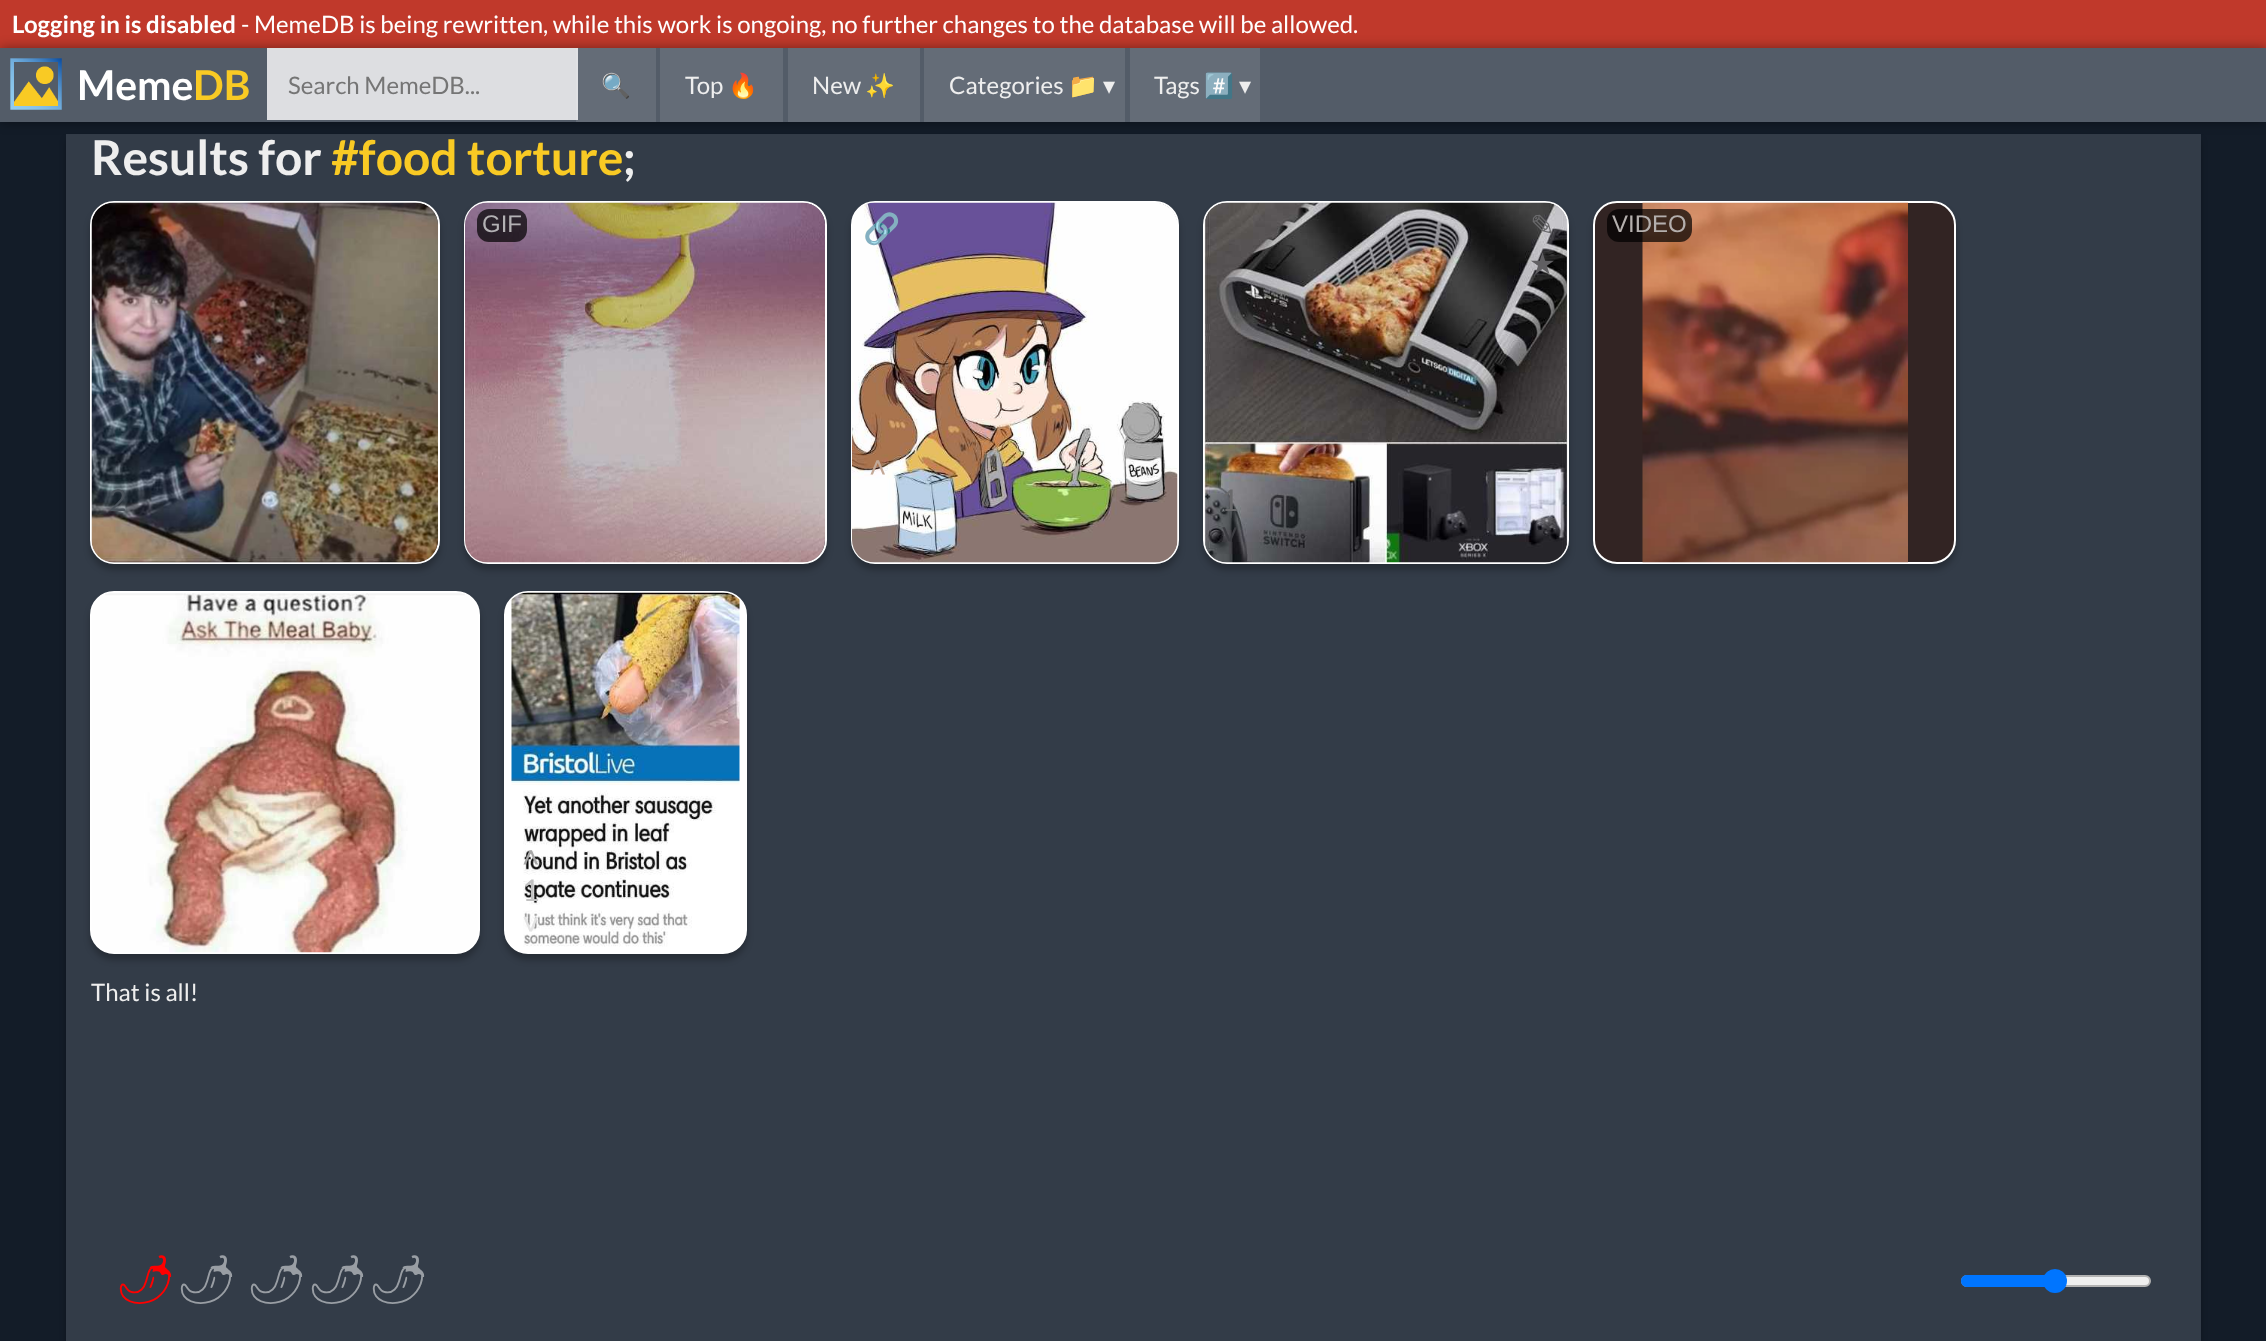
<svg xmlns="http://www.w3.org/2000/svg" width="2266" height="1341">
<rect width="100%" height="100%" fill="#131c28"/>
<rect width="2266" height="48" fill="#c0392b"/>
<text x="12" y="33" style="font-family:Lato;font-size:24px;font-weight:bold;fill:#fff">Logging in is disabled</text>
<text x="241" y="33" style="font-family:Lato;font-size:24px;fill:#fff">- MemeDB is being rewritten, while this work is ongoing, no further changes to the database will be allowed.</text>
<rect x="66" y="140" width="2135" height="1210" fill="#00000040" filter="blur(3px)"/>
<rect x="66" y="134" width="2135" height="1207" fill="#333c48"/>
<rect y="48" width="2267" height="74" fill="#00000066" filter="blur(6px)"/>
<rect y="48" width="2266" height="74" fill="#535c68"/>
<image x="10" y="58" width="52" height="52" href="media/1.png"/>
<text x="77" y="100" style="font-family:Lato;font-size:41px;font-weight:bold;fill:#fff">Meme</text>
<text x="193" y="100" style="font-family:Lato;font-size:41px;font-weight:bold;fill:#f9ca24">DB</text>
<rect x="267" y="48" width="311" height="72" fill="#dddee1"/>
<text x="288" y="94" style="font-family:Lato;font-size:24px;fill:#757575">Search MemeDB...</text>
<rect x="576" y="48" width="80" height="74" fill="#ffffff1a"/>
<text x="601" y="94" style="font-family:Noto Color Emoji;font-size:24px;fill:#eee">🔍</text>
<rect x="660" y="48" width="123" height="74" fill="#646c77"/>
<text x="685" y="94" style="font-family:Lato;font-size:24px;fill:#eee">Top</text>
<text x="728" y="94" style="font-family:Noto Color Emoji;font-size:24px;fill:#eee">🔥</text>
<rect x="788" y="48" width="132" height="74" fill="#646c77"/>
<text x="812" y="94" style="font-family:Lato;font-size:24px;fill:#eee">New</text>
<text x="865" y="94" style="font-family:Noto Color Emoji;font-size:24px;fill:#eee">✨</text>
<rect x="924" y="48" width="201" height="74" fill="#646c77"/>
<text x="949" y="94" style="font-family:Lato;font-size:24px;fill:#eee">Categories</text>
<text x="1068" y="94" style="font-family:Noto Color Emoji;font-size:24px;fill:#eee">📁</text>
<text x="1103" y="94" style="font-family:DejaVu Sans;font-size:24px;fill:#eee">▾</text>
<rect x="1130" y="48" width="130" height="74" fill="#646c77"/>
<text x="1154" y="94" style="font-family:Lato;font-size:24px;fill:#eee">Tags</text>
<text x="1204" y="94" style="font-family:Noto Color Emoji;font-size:24px;fill:#eee">#️⃣</text>
<text x="1239" y="94" style="font-family:DejaVu Sans;font-size:24px;fill:#eee">▾</text>
<text x="91" y="175" style="font-family:Lato;font-size:48px;font-weight:bold;fill:#eee">Results for</text>
<text x="331" y="175" style="font-family:Lato;font-size:48px;font-weight:bold;fill:#f9ca24">#food torture</text>
<text x="623" y="175" style="font-family:Lato;font-size:48px;font-weight:bold;fill:#eee">;</text>
<rect x="464" y="207" width="363" height="363" rx="24" fill="#00000040" filter="blur(3px)"/>
<rect x="465" y="202" width="361" height="361" rx="23" fill="none" stroke="#fff" stroke-width="2"/>
<image x="465" y="202" width="360" height="361" href="media/2.png"/>
<rect x="477" y="209" width="50" height="33" rx="12" fill="#000000b3"/>
<text x="482" y="232" style="font-family:Liberation Sans;font-size:24px;fill:#b3b1b4">GIF</text>
<rect x="851" y="207" width="328" height="363" rx="24" fill="#00000040" filter="blur(3px)"/>
<rect x="852" y="202" width="326" height="361" rx="23" fill="none" stroke="#fff" stroke-width="2"/>
<image x="852" y="202" width="326" height="361" href="media/3.png"/>
<text x="863" y="239" style="font-family:Noto Color Emoji;font-size:30px;fill:#9283b2">🔗</text>
<text x="869" y="478" style="font-family:Liberation Sans;font-size:30px;fill:#c2a897">˄</text>
<rect x="1203" y="207" width="366" height="363" rx="24" fill="#00000040" filter="blur(3px)"/>
<rect x="1204" y="202" width="364" height="361" rx="23" fill="none" stroke="#fff" stroke-width="2"/>
<image x="1204" y="202" width="364" height="361" href="media/4.png"/>
<text x="1530" y="236" style="font-family:DejaVu Sans;font-size:30px;fill:#6a6a6c">✎</text>
<text x="1529" y="274" style="font-family:DejaVu Sans;font-size:30px;fill:#605f62">★</text>
<text x="1221" y="511" style="font-family:Lato;font-size:30px;fill:#6a6a6c">1</text>
<text x="1221" y="545" style="font-family:Liberation Sans;font-size:30px;fill:#3c3c41">˅</text>
<rect x="1593" y="207" width="363" height="363" rx="24" fill="#00000040" filter="blur(3px)"/>
<rect x="1594" y="202" width="361" height="361" rx="23" fill="#322423" stroke="#fff" stroke-width="2"/>
<image x="1642" y="202" width="266" height="361" href="media/5.png"/>
<rect x="1607" y="209" width="85" height="33" rx="12" fill="#000000b3"/>
<text x="1612" y="232" style="font-family:Liberation Sans;font-size:24px;fill:#b4afad">VIDEO</text>
<rect x="90" y="207" width="350" height="363" rx="24" fill="#00000040" filter="blur(3px)"/>
<rect x="91" y="202" width="348" height="361" rx="23" fill="none" stroke="#fff" stroke-width="2"/>
<image x="91" y="202" width="347" height="361" href="media/6.png"/>
<text x="109" y="511" style="font-family:Lato;font-size:30px;fill:#4b535b">2</text>
<rect x="90" y="597" width="390" height="363" rx="24" fill="#00000040" filter="blur(3px)"/>
<rect x="91" y="592" width="388" height="361" rx="23" fill="#fefefe" stroke="#fff" stroke-width="2"/>
<image x="105" y="593" width="360" height="360" href="media/7.png"/>
<rect x="504" y="597" width="243" height="363" rx="24" fill="#00000040" filter="blur(3px)"/>
<rect x="505" y="592" width="241" height="361" rx="23" fill="#fff" stroke="#fff" stroke-width="2"/>
<image x="511" y="592" width="229" height="355" href="media/8.png"/>
<text x="522" y="868" style="font-family:Liberation Sans;font-size:30px;fill:#a6a6a6">˄</text>
<text x="522" y="901" style="font-family:Lato;font-size:30px;fill:#c1c1c1">1</text>
<text x="522" y="935" style="font-family:Liberation Sans;font-size:30px;fill:#e4e4e4">˅</text>
<text x="91" y="1001" style="font-family:Lato;font-size:24px;fill:#eee">That is all!</text>
<text x="115" y="1296" style="font-family:Noto Emoji;font-size:48px;fill:#f00">🌶</text>
<text x="176" y="1296" style="font-family:Noto Emoji;font-size:48px;fill:#999ea4">🌶</text>
<text x="246" y="1296" style="font-family:Noto Emoji;font-size:48px;fill:#999ea4">🌶🌶🌶</text>
<rect x="1962" y="1276" width="188" height="10" rx="5" fill="#efefef" stroke="#b2b2b2" stroke-width="2"/>
<path d="M1967 1275h88v12h-88c-3.5 0-6-2.5-6-6c0-3.5 2.5-6 6-6z" fill="#0075ff"/>
<circle cx="2055" cy="1281" r="12" fill="#0075ff"/>
</svg>
